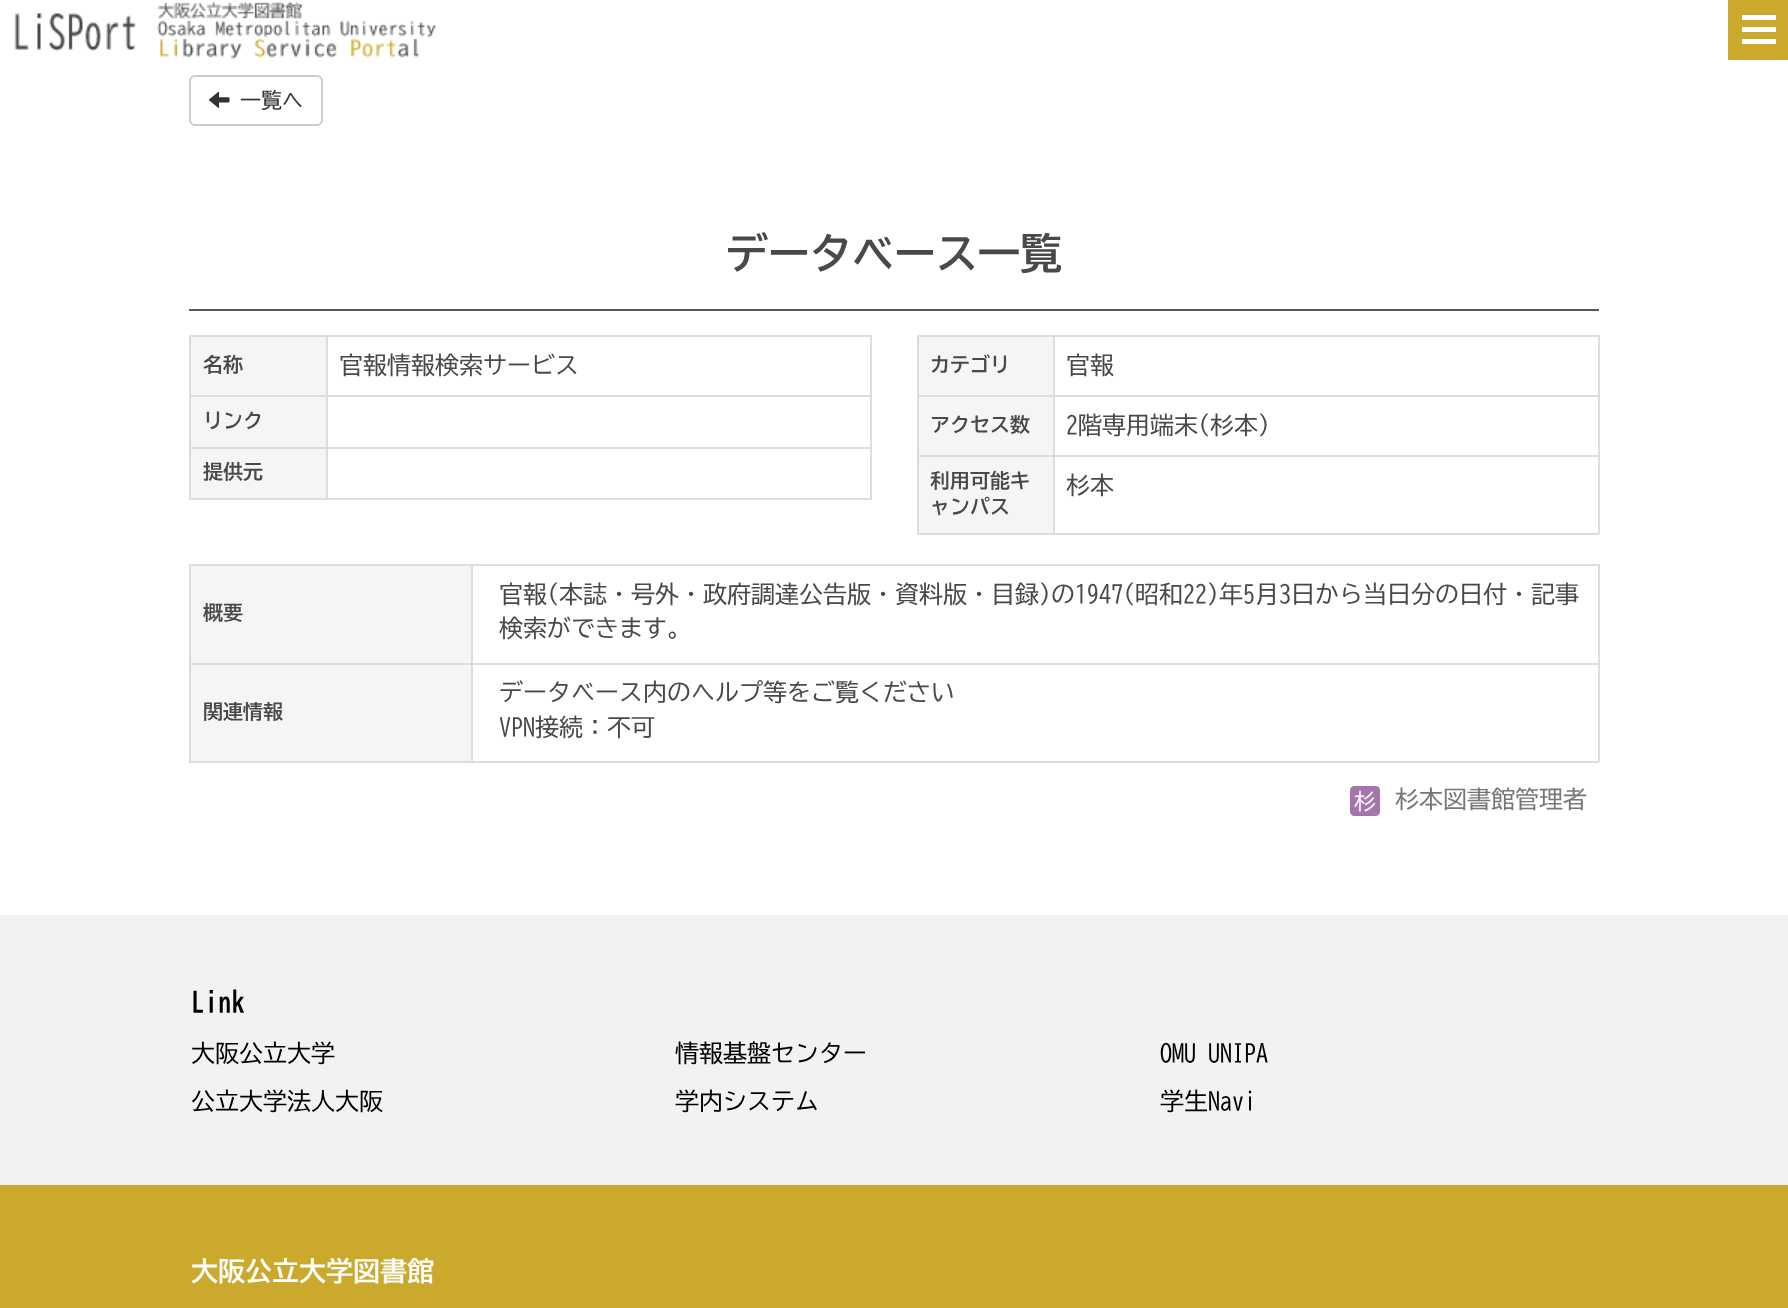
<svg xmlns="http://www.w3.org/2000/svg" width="1788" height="1308">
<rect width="100%" height="100%" fill="#fff"/>
<image x="14" y="1" width="423" height="58" href="media/1.png"/>
<rect x="1728" width="60" height="60" fill="#cba92c"/>
<rect x="1742" y="15" width="34" height="5" fill="#fff"/>
<rect x="1742" y="27" width="34" height="5" fill="#fff"/>
<rect x="1742" y="39" width="34" height="5" fill="#fff"/>
<rect x="190" y="76" width="132" height="49" rx="5" fill="none" stroke="#ccc" stroke-width="2"/>
<image x="208" y="91" width="22" height="17" href="media/2.png"/>
<text x="240" y="108" style="font-family:BIZ UDGothic;font-size:21px;fill:#333">一覧へ</text>
<rect x="189" y="309" width="1410" height="2" fill="#565757"/>
<text x="726" y="269" style="font-family:BIZ UDGothic;font-size:42px;font-weight:bold;fill:#494949">データベース一覧</text>
<rect x="189" y="335" width="683" height="2" fill="#ddd"/>
<rect x="870" y="335" width="2" height="165" fill="#ddd"/>
<rect x="189" y="498" width="683" height="2" fill="#ddd"/>
<rect x="189" y="335" width="2" height="165" fill="#ddd"/>
<rect x="191" y="337" width="135" height="58" fill="#f5f5f5"/>
<text x="203" y="372" style="font-family:BIZ UDGothic;font-size:20px;font-weight:bold;fill:#494949">名称</text>
<rect x="326" y="395" width="546" height="2" fill="#ddd"/>
<rect x="326" y="447" width="546" height="2" fill="#ddd"/>
<rect x="326" y="447" width="2" height="53" fill="#ddd"/>
<rect x="189" y="447" width="138" height="2" fill="#ddd"/>
<rect x="326" y="395" width="2" height="54" fill="#ddd"/>
<rect x="189" y="395" width="138" height="2" fill="#ddd"/>
<rect x="326" y="335" width="2" height="61" fill="#ddd"/>
<text x="339" y="374" style="font-family:BIZ UDGothic;font-size:24px;fill:#494949">官報情報検索サービス</text>
<rect x="191" y="397" width="135" height="50" fill="#f5f5f5"/>
<text x="203" y="428" style="font-family:BIZ UDGothic;font-size:20px;font-weight:bold;fill:#494949">リンク</text>
<rect x="191" y="449" width="135" height="49" fill="#f5f5f5"/>
<text x="203" y="479" style="font-family:BIZ UDGothic;font-size:20px;font-weight:bold;fill:#494949">提供元</text>
<rect x="917" y="335" width="682" height="2" fill="#ddd"/>
<rect x="1598" y="335" width="2" height="199" fill="#ddd"/>
<rect x="917" y="533" width="682" height="2" fill="#ddd"/>
<rect x="917" y="335" width="2" height="199" fill="#ddd"/>
<rect x="919" y="337" width="134" height="58" fill="#f5f5f5"/>
<text x="930" y="372" style="font-family:BIZ UDGothic;font-size:20px;font-weight:bold;fill:#494949">カテゴリ</text>
<rect x="1053" y="395" width="546" height="2" fill="#ddd"/>
<rect x="1053" y="455" width="546" height="2" fill="#ddd"/>
<rect x="1053" y="455" width="2" height="79" fill="#ddd"/>
<rect x="917" y="455" width="138" height="2" fill="#ddd"/>
<rect x="1053" y="395" width="2" height="61" fill="#ddd"/>
<rect x="917" y="395" width="138" height="2" fill="#ddd"/>
<rect x="1053" y="335" width="2" height="61" fill="#ddd"/>
<text x="1066" y="374" style="font-family:BIZ UDGothic;font-size:24px;fill:#494949">官報</text>
<rect x="919" y="397" width="134" height="58" fill="#f5f5f5"/>
<text x="930" y="432" style="font-family:BIZ UDGothic;font-size:20px;font-weight:bold;fill:#494949">アクセス数</text>
<text x="1066" y="434" style="font-family:BIZ UDGothic;font-size:24px;fill:#494949">2階専用端末(杉本)</text>
<rect x="919" y="457" width="134" height="76" fill="#f5f5f5"/>
<text x="930" y="488" style="font-family:BIZ UDGothic;font-size:20px;font-weight:bold;fill:#494949">利用可能キ</text>
<text x="930" y="514" style="font-family:BIZ UDGothic;font-size:20px;font-weight:bold;fill:#494949">ャンパス</text>
<text x="1066" y="494" style="font-family:BIZ UDGothic;font-size:24px;fill:#494949">杉本</text>
<rect x="189" y="564" width="1410" height="2" fill="#ddd"/>
<rect x="1598" y="564" width="2" height="198" fill="#ddd"/>
<rect x="189" y="761" width="1410" height="2" fill="#ddd"/>
<rect x="189" y="564" width="2" height="198" fill="#ddd"/>
<rect x="191" y="566" width="280" height="97" fill="#f5f5f5"/>
<text x="203" y="620" style="font-family:BIZ UDGothic;font-size:20px;font-weight:bold;fill:#494949">概要</text>
<rect x="471" y="663" width="1128" height="2" fill="#ddd"/>
<rect x="471" y="663" width="2" height="99" fill="#ddd"/>
<rect x="189" y="663" width="284" height="2" fill="#ddd"/>
<rect x="471" y="564" width="2" height="101" fill="#ddd"/>
<text x="499" y="603" style="font-family:BIZ UDGothic;font-size:24px;fill:#494949">官報(本誌・号外・政府調達公告版・資料版・目録)の1947(昭和22)年5月3日から当日分の日付・記事</text>
<text x="499" y="637" style="font-family:BIZ UDGothic;font-size:24px;fill:#494949">検索ができます。</text>
<rect x="191" y="665" width="280" height="96" fill="#f5f5f5"/>
<text x="203" y="719" style="font-family:BIZ UDGothic;font-size:20px;font-weight:bold;fill:#494949">関連情報</text>
<text x="499" y="701" style="font-family:BIZ UDGothic;font-size:24px;fill:#494949">データベース内のヘルプ等をご覧ください</text>
<text x="499" y="736" style="font-family:BIZ UDGothic;font-size:24px;fill:#494949">VPN接続：不可</text>
<image x="1350" y="786" width="30" height="30" href="media/3.png"/>
<text x="1395" y="808" style="font-family:BIZ UDGothic;font-size:24px;fill:#777">杉本図書館管理者</text>
<rect y="915" width="1788" height="270" fill="#f2f2f2"/>
<text x="191" y="1012" style="font-family:BIZ UDGothic;font-size:27px;font-weight:bold;fill:#000">Link</text>
<text x="191" y="1062" style="font-family:BIZ UDGothic;font-size:24px;fill:#000">大阪公立大学</text>
<text x="191" y="1110" style="font-family:BIZ UDGothic;font-size:24px;fill:#000">公立大学法人大阪</text>
<text x="675" y="1062" style="font-family:BIZ UDGothic;font-size:24px;fill:#000">情報基盤センター</text>
<text x="675" y="1110" style="font-family:BIZ UDGothic;font-size:24px;fill:#000">学内システム</text>
<text x="1160" y="1062" style="font-family:BIZ UDGothic;font-size:24px;fill:#000">OMU UNIPA</text>
<text x="1160" y="1110" style="font-family:BIZ UDGothic;font-size:24px;fill:#000">学生Navi</text>
<rect y="1185" width="1788" height="123" fill="#cba92c"/>
<text x="191" y="1281" style="font-family:BIZ UDGothic;font-size:27px;font-weight:bold;fill:#fff">大阪公立大学図書館</text>
</svg>
